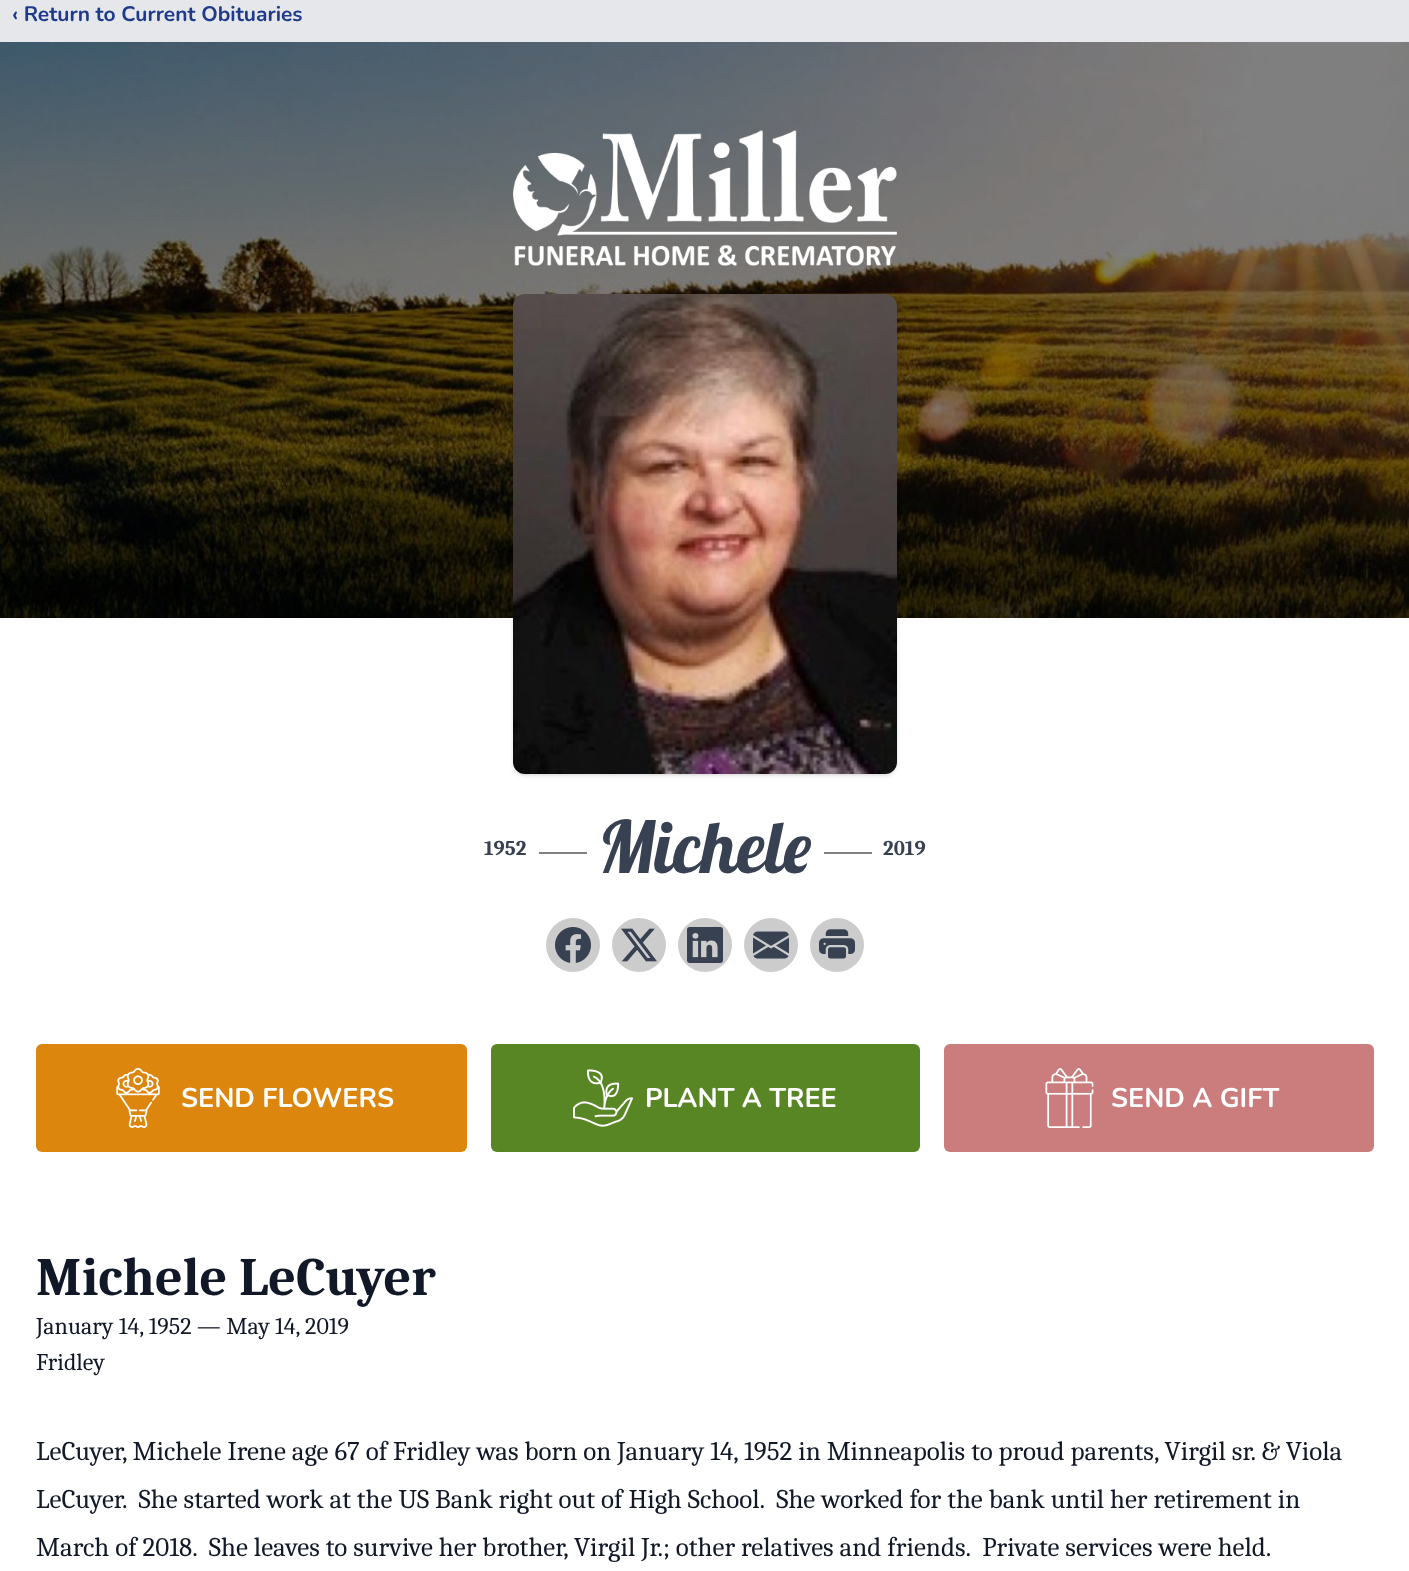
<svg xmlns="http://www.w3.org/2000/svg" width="1409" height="1571">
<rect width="100%" height="100%" fill="#fff"/>
<rect width="1409" height="42" fill="#e5e7eb"/>
<text x="12" y="21" style="font-family:Nunito;font-size:21px;font-weight:bold;fill:#1e3a8a">‹ Return to Current Obituaries</text>
<image x="0" y="42" width="1409" height="576" href="media/1.png"/>
<image x="513" y="130" width="384" height="136" href="media/2.png"/>
<rect x="515" y="297" width="381" height="477" rx="11" fill="#0000001a" filter="blur(1.5px)"/>
<rect x="513" y="296" width="384" height="480" rx="12" fill="#0000001a" filter="blur(2px)"/>
<image x="513" y="294" width="384" height="480" href="media/3.png"/>
<text x="484" y="855" style="font-family:Caladea;font-size:21px;font-weight:bold;fill:#374151">1952</text>
<rect x="539" y="852" width="48" height="2" fill="#808080"/>
<text x="598" y="873" style="font-family:Lobster;font-size:72px;fill:#374151">Michele</text>
<rect x="824" y="852" width="48" height="2" fill="#808080"/>
<text x="883" y="855" style="font-family:Caladea;font-size:21px;font-weight:bold;fill:#374151">2019</text>
<circle cx="573" cy="945" r="27" fill="#ccc"/>
<image x="555" y="927" width="36" height="36" href="media/4.png"/>
<circle cx="639" cy="945" r="27" fill="#ccc"/>
<image x="621" y="928" width="36" height="34" href="media/5.png"/>
<circle cx="705" cy="945" r="27" fill="#ccc"/>
<image x="687" y="927" width="36" height="36" href="media/6.png"/>
<circle cx="771" cy="945" r="27" fill="#ccc"/>
<image x="753" y="931" width="36" height="28" href="media/7.png"/>
<circle cx="837" cy="945" r="27" fill="#ccc"/>
<image x="819" y="929" width="36" height="30" href="media/8.png"/>
<rect x="36" y="1044" width="431" height="108" rx="6" fill="#dc860d"/>
<image x="116" y="1068" width="44" height="60" href="media/9.png"/>
<text x="181" y="1107" style="font-family:Nunito;font-size:27px;font-weight:bold;fill:#fff">SEND FLOWERS</text>
<rect x="491" y="1044" width="429" height="108" rx="6" fill="#588624"/>
<image x="573" y="1069" width="60" height="58" href="media/10.png"/>
<text x="645" y="1107" style="font-family:Nunito;font-size:27px;font-weight:bold;fill:#fff">PLANT A TREE</text>
<rect x="944" y="1044" width="430" height="108" rx="6" fill="#cb7c7c"/>
<image x="1045" y="1068" width="49" height="60" href="media/11.png"/>
<text x="1111" y="1107" style="font-family:Nunito;font-size:27px;font-weight:bold;fill:#fff">SEND A GIFT</text>
<text x="36" y="1295" style="font-family:Caladea;font-size:54px;font-weight:bold;fill:#111827">Michele LeCuyer</text>
<text x="36" y="1334" style="font-family:Caladea;font-size:24px;fill:#111827">January 14, 1952 — May 14, 2019</text>
<text x="36" y="1370" style="font-family:Caladea;font-size:24px;fill:#111827">Fridley</text>
<text x="36" y="1460" style="font-family:Caladea;font-size:27px;fill:#111827">LeCuyer, Michele Irene age 67 of Fridley was born on January 14, 1952 in Minneapolis to proud parents, Virgil sr. &amp; Viola</text>
<text x="36" y="1508" style="font-family:Caladea;font-size:27px;fill:#111827" xml:space="preserve">LeCuyer.  She started work at the US Bank right out of High School.  She worked for the bank until her retirement in</text>
<text x="36" y="1556" style="font-family:Caladea;font-size:27px;fill:#111827" xml:space="preserve">March of 2018.  She leaves to survive her brother, Virgil Jr.; other relatives and friends.  Private services were held.</text>
</svg>
